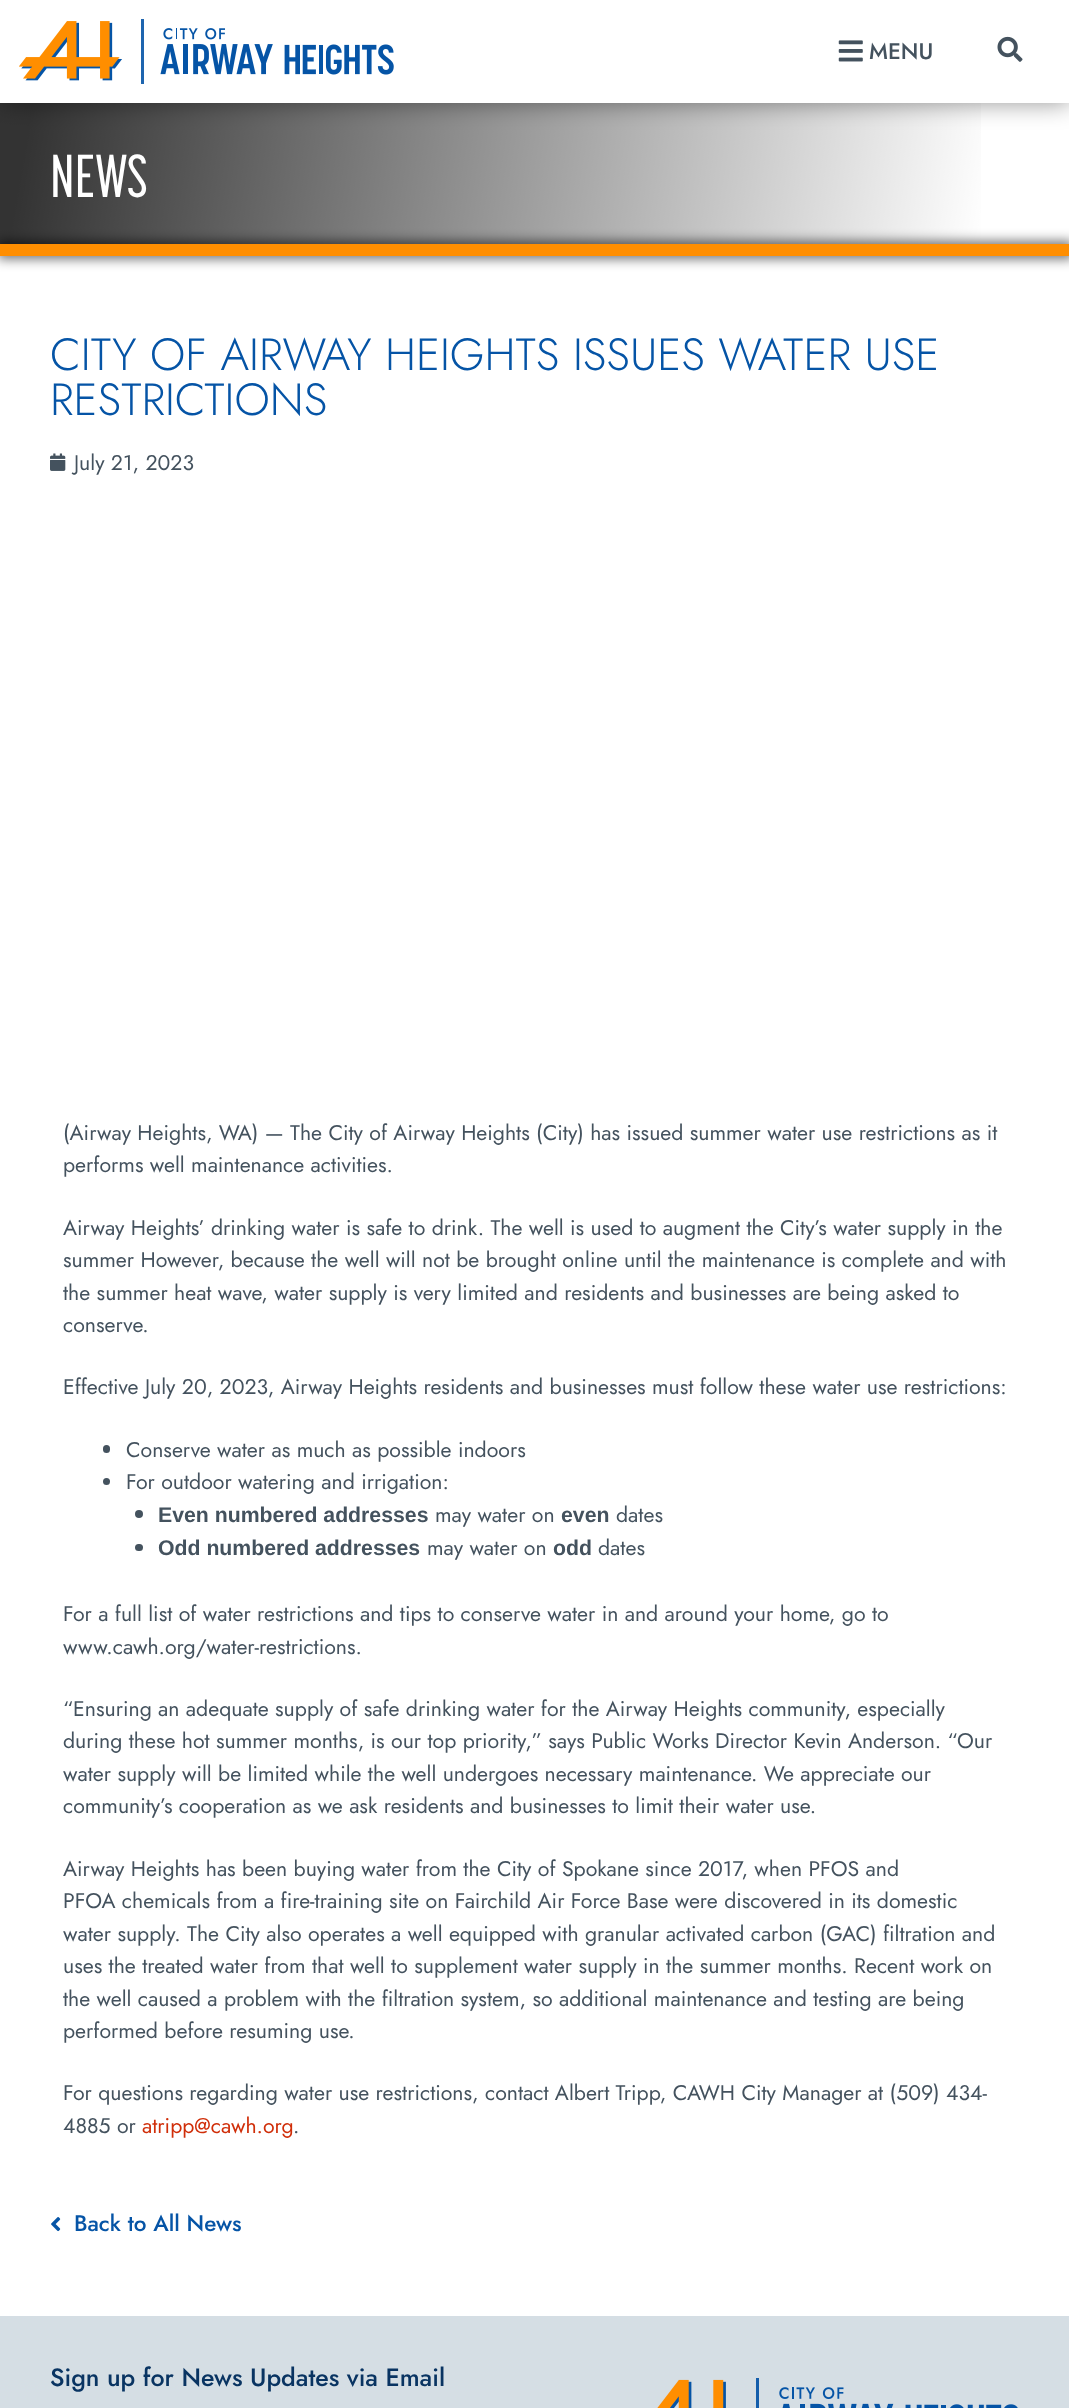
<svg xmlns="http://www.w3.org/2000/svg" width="1069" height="2408">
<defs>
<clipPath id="clip1"><path d="M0 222h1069v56h-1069zm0 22h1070v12h-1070z" clip-rule="evenodd"/></clipPath>
<linearGradient id="g1" gradientUnits="userSpaceOnUse" x1="1066" y1="267" x2="4.1" y2="80"><stop offset="0.08" stop-color="#000" stop-opacity="0"/><stop offset="0.97" stop-color="#000" stop-opacity="0.8"/></linearGradient>
</defs>
<rect width="100%" height="100%" fill="#fff"/>
<rect width="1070" height="103" fill="#0000006b" filter="blur(12.5px)"/>
<rect width="1069" height="103" fill="#fff"/>
<image x="19" y="19" width="375" height="65" href="media/1.png"/>
<image x="838" y="40" width="25" height="22" href="media/2.png"/>
<text x="869" y="59" style="font-family:Jost;font-size:22.5px;font-weight:500;fill:#44525e">MENU</text>
<image x="997" y="36" width="26" height="26" href="media/3.png"/>
<rect y="244" width="1069" height="12" fill="#ff8e00"/>
<g clip-path="url(#clip1)">
<rect x="-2" y="241" width="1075" height="18" fill="#0000008c" filter="blur(6px)"/>
</g>
<rect y="103" width="981" height="141" fill="url(#g1)"/>
<text x="50" y="197" style="font-family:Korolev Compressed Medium;font-size:60px;font-weight:500;fill:#fff">NEWS</text>
<text x="50" y="370" style="font-family:Jost;font-size:45px;font-weight:300;fill:#0554a6">CITY OF AIRWAY HEIGHTS ISSUES WATER USE</text>
<text x="50" y="415" style="font-family:Jost;font-size:45px;font-weight:300;fill:#0554a6">RESTRICTIONS</text>
<image x="50" y="453" width="16" height="18" href="media/4.png"/>
<text x="74" y="470" style="font-family:Jost;font-size:21.25px;fill:#44525e">July 21, 2023</text>
<text x="63" y="1140" style="font-family:Jost;font-size:21.25px;fill:#44525e">(Airway Heights, WA) — The City of Airway Heights (City) has issued summer water use restrictions as it</text>
<text x="63" y="1172" style="font-family:Jost;font-size:21.25px;fill:#44525e">performs well maintenance activities.</text>
<text x="63" y="1235" style="font-family:Jost;font-size:21.25px;fill:#44525e">Airway Heights’ drinking water is safe to drink. The well is used to augment the City’s water supply in the</text>
<text x="63" y="1267" style="font-family:Jost;font-size:21.25px;fill:#44525e">summer However, because the well will not be brought online until the maintenance is complete and with</text>
<text x="63" y="1300" style="font-family:Jost;font-size:21.25px;fill:#44525e">the summer heat wave, water supply is very limited and residents and businesses are being asked to</text>
<text x="63" y="1332" style="font-family:Jost;font-size:21.25px;fill:#44525e">conserve.</text>
<text x="63" y="1394" style="font-family:Jost;font-size:21.25px;fill:#44525e">Effective July 20, 2023, Airway Heights residents and businesses must follow these water use restrictions:</text>
<rect x="103" y="1445" width="7" height="8" rx="3.5" fill="#44525e"/>
<text x="126" y="1457" style="font-family:Jost;font-size:21.25px;fill:#44525e">Conserve water as much as possible indoors</text>
<circle cx="106.5" cy="1481.5" r="3.5" fill="#44525e"/>
<text x="126" y="1489" style="font-family:Jost;font-size:21.25px;fill:#44525e">For outdoor watering and irrigation:</text>
<circle cx="139" cy="1514" r="4" fill="#44525e"/>
<text x="158" y="1522" style="font-family:Liberation Sans;font-size:21.25px;font-weight:bold;fill:#44525e">Even numbered addresses</text>
<text x="435" y="1522" style="font-family:Jost;font-size:21.25px;fill:#44525e">may water on</text>
<text x="561" y="1522" style="font-family:Liberation Sans;font-size:21.25px;font-weight:bold;fill:#44525e">even</text>
<text x="616" y="1522" style="font-family:Jost;font-size:21.25px;fill:#44525e">dates</text>
<rect x="135" y="1544" width="8" height="7" rx="3.5" fill="#44525e"/>
<text x="158" y="1555" style="font-family:Liberation Sans;font-size:21.25px;font-weight:bold;fill:#44525e">Odd numbered addresses</text>
<text x="427" y="1555" style="font-family:Jost;font-size:21.25px;fill:#44525e">may water on</text>
<text x="553" y="1555" style="font-family:Liberation Sans;font-size:21.25px;font-weight:bold;fill:#44525e">odd</text>
<text x="598" y="1555" style="font-family:Jost;font-size:21.25px;fill:#44525e">dates</text>
<text x="63" y="1621" style="font-family:Jost;font-size:21.25px;fill:#44525e">For a full list of water restrictions and tips to conserve water in and around your home, go to</text>
<text x="63" y="1654" style="font-family:Jost;font-size:21.25px;fill:#44525e">www.cawh.org/water-restrictions.</text>
<text x="63" y="1716" style="font-family:Jost;font-size:21.25px;fill:#44525e">“Ensuring an adequate supply of safe drinking water for the Airway Heights community, especially</text>
<text x="63" y="1748" style="font-family:Jost;font-size:21.25px;fill:#44525e">during these hot summer months, is our top priority,” says Public Works Director Kevin Anderson. “Our</text>
<text x="63" y="1781" style="font-family:Jost;font-size:21.25px;fill:#44525e">water supply will be limited while the well undergoes necessary maintenance. We appreciate our</text>
<text x="63" y="1813" style="font-family:Jost;font-size:21.25px;fill:#44525e">community’s cooperation as we ask residents and businesses to limit their water use.</text>
<text x="63" y="1876" style="font-family:Jost;font-size:21.25px;fill:#44525e">Airway Heights has been buying water from the City of Spokane since 2017, when PFOS and</text>
<text x="63" y="1908" style="font-family:Jost;font-size:21.25px;fill:#44525e">PFOA chemicals from a fire-training site on Fairchild Air Force Base were discovered in its domestic</text>
<text x="63" y="1941" style="font-family:Jost;font-size:21.25px;fill:#44525e">water supply. The City also operates a well equipped with granular activated carbon (GAC) filtration and</text>
<text x="63" y="1973" style="font-family:Jost;font-size:21.25px;fill:#44525e">uses the treated water from that well to supplement water supply in the summer months. Recent work on</text>
<text x="63" y="2006" style="font-family:Jost;font-size:21.25px;fill:#44525e">the well caused a problem with the filtration system, so additional maintenance and testing are being</text>
<text x="63" y="2038" style="font-family:Jost;font-size:21.25px;fill:#44525e">performed before resuming use.</text>
<text x="63" y="2100" style="font-family:Jost;font-size:21.25px;fill:#44525e">For questions regarding water use restrictions, contact Albert Tripp, CAWH City Manager at (509) 434-</text>
<text x="63" y="2133" style="font-family:Jost;font-size:21.25px;fill:#44525e">4885 or</text>
<text x="142" y="2133" style="font-family:Jost;font-size:21.25px;fill:#d02e09">atripp@cawh.org</text>
<text x="293" y="2133" style="font-family:Jost;font-size:21.25px;fill:#44525e">.</text>
<image x="51" y="2217" width="10" height="15" href="media/5.png"/>
<text x="74" y="2231" style="font-family:Jost;font-size:22.5px;font-weight:500;fill:#0554a6">Back to All News</text>
<rect y="2316" width="1069" height="92" fill="#d5dee4"/>
<text x="50" y="2386" style="font-family:Jost;font-size:25px;font-weight:500;fill:#093462">Sign up for News Updates via Email</text>
<image x="657" y="2378" width="361" height="30" href="media/6.png"/>
</svg>
